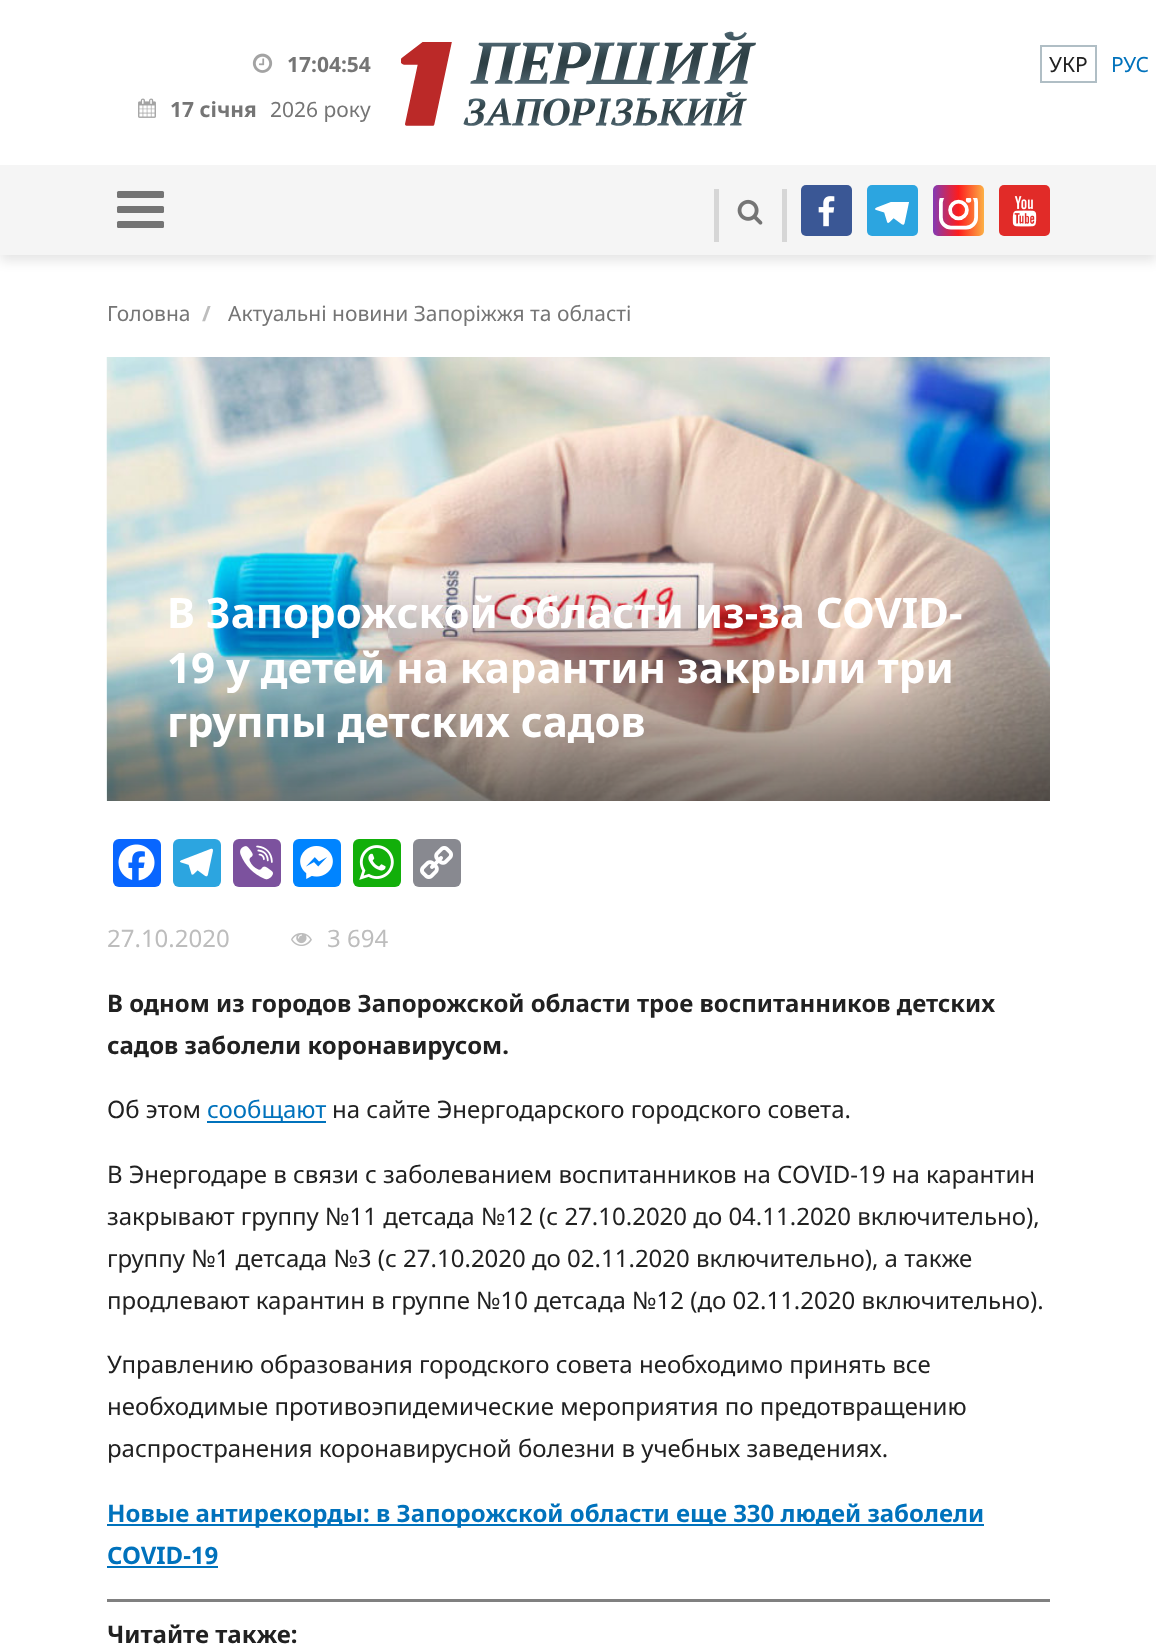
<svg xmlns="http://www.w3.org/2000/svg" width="1156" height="1648">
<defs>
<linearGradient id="g1" gradientUnits="userSpaceOnUse" x1="933" y1="210" x2="984" y2="210"><stop offset="0" stop-color="#833ab4"/><stop offset="0.5" stop-color="#fd1d1d"/><stop offset="1" stop-color="#fcb045"/></linearGradient>
</defs>
<rect width="100%" height="100%" fill="#fff"/>
<rect y="6" width="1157" height="255" fill="#0000001a" filter="blur(6px)"/>
<rect width="1156" height="165" fill="#fff"/>
<image x="252" y="53" width="21" height="20" href="media/1.png"/>
<text x="287" y="72" style="font-family:Noto Sans;font-size:21px;font-weight:bold;fill:#757575">17:04:54</text>
<image x="138" y="98" width="18" height="20" href="media/2.png"/>
<text x="170" y="117" style="font-family:Noto Sans;font-size:21px;font-weight:bold;fill:#757575">17 січня</text>
<text x="270" y="117" style="font-family:Noto Sans;font-size:21px;fill:#757575">2026 року</text>
<image x="401" y="31" width="355" height="95" href="media/3.png"/>
<rect x="1041" y="46" width="55" height="36" fill="none" stroke="#b0bec5" stroke-width="2"/>
<text x="1049" y="72" style="font-family:Noto Sans;font-size:21px;fill:#212121">УКР</text>
<text x="1111" y="72" style="font-family:Noto Sans;font-size:21px;fill:#0072bc">РУС</text>
<rect y="165" width="1156" height="90" fill="#f5f5f5"/>
<rect x="117" y="191" width="47" height="7" rx="1.5" fill="#747474"/>
<rect x="117" y="206" width="47" height="7" rx="1.5" fill="#747474"/>
<rect x="117" y="221" width="47" height="7" rx="1.5" fill="#747474"/>
<rect x="714" y="189" width="5" height="53" fill="#d6d6d6"/>
<image x="737" y="199" width="26" height="26" href="media/4.png"/>
<rect x="782" y="189" width="5" height="53" fill="#d6d6d6"/>
<rect x="801" y="185" width="51" height="51" rx="5" fill="#3a5795"/>
<image x="818" y="196" width="17" height="31" href="media/5.png"/>
<rect x="867" y="185" width="51" height="51" rx="5" fill="#2ca5e0"/>
<image x="875" y="202" width="34" height="23" href="media/6.png"/>
<rect x="933" y="185" width="51" height="51" rx="5" fill="url(#g1)"/>
<image x="938" y="198" width="40" height="32" href="media/7.png"/>
<rect x="999" y="185" width="51" height="51" rx="5" fill="#e12b28"/>
<image x="1012" y="196" width="25" height="31" href="media/8.png"/>
<text x="107" y="321" style="font-family:Noto Sans;font-size:21px;fill:#757575">Головна</text>
<text x="202" y="321" style="font-family:Noto Sans;font-size:21px;font-weight:bold;fill:#bdbdbd">/</text>
<text x="228" y="321" style="font-family:Noto Sans;font-size:21px;fill:#757575">Актуальні новини Запоріжжя та області</text>
<image x="106" y="357" width="944" height="444" href="media/9.png"/>
<text x="167" y="628" style="font-family:Noto Sans;font-size:42px;font-weight:bold;fill:#fff">В Запорожской области из-за СОVID-</text>
<text x="167" y="683" style="font-family:Noto Sans;font-size:42px;font-weight:bold;fill:#fff">19 у детей на карантин закрыли три</text>
<text x="167" y="737" style="font-family:Noto Sans;font-size:42px;font-weight:bold;fill:#fff">группы детских садов</text>
<rect x="113" y="839" width="48" height="48" rx="6" fill="#0866ff"/>
<image x="118" y="844" width="37" height="37" href="media/10.png"/>
<rect x="173" y="839" width="48" height="48" rx="6" fill="#2ca5e0"/>
<image x="180" y="848" width="33" height="29" href="media/11.png"/>
<rect x="233" y="839" width="48" height="48" rx="6" fill="#7c529e"/>
<image x="240" y="845" width="33" height="35" href="media/12.png"/>
<rect x="293" y="839" width="48" height="48" rx="6" fill="#0084ff"/>
<image x="300" y="846" width="33" height="33" href="media/13.png"/>
<rect x="353" y="839" width="48" height="48" rx="6" fill="#12af0a"/>
<image x="359" y="845" width="35" height="35" href="media/14.png"/>
<rect x="413" y="839" width="48" height="48" rx="6" fill="#888990"/>
<image x="420" y="846" width="33" height="33" href="media/15.png"/>
<text x="107" y="947" style="font-family:Noto Sans;font-size:24px;fill:#bdbdbd">27.10.2020</text>
<image x="291" y="933" width="21" height="13" href="media/16.png"/>
<text x="327" y="947" style="font-family:Noto Sans;font-size:24px;fill:#bdbdbd">3 694</text>
<text x="107" y="1012" style="font-family:Noto Sans;font-size:24px;font-weight:bold;fill:#212121">В одном из городов Запорожской области трое воспитанников детских</text>
<text x="107" y="1054" style="font-family:Noto Sans;font-size:24px;font-weight:bold;fill:#212121">садов заболели коронавирусом.</text>
<text x="107" y="1118" style="font-family:Noto Sans;font-size:24px;fill:#212121">Об этом</text>
<rect x="207" y="1121" width="119" height="2" fill="#0072bc"/>
<text x="207" y="1118" style="font-family:Noto Sans;font-size:24px;fill:#0072bc">сообщают</text>
<text x="332" y="1118" style="font-family:Noto Sans;font-size:24px;fill:#212121">на сайте Энергодарского городского совета.</text>
<text x="107" y="1183" style="font-family:Noto Sans;font-size:24px;fill:#212121">В Энергодаре в связи с заболеванием воспитанников на СОVID-19 на карантин</text>
<text x="107" y="1225" style="font-family:Noto Sans;font-size:24px;fill:#212121">закрывают группу №11 детсада №12 (с 27.10.2020 до 04.11.2020 включительно),</text>
<text x="107" y="1267" style="font-family:Noto Sans;font-size:24px;fill:#212121">группу №1 детсада №3 (с 27.10.2020 до 02.11.2020 включительно), а также</text>
<text x="107" y="1309" style="font-family:Noto Sans;font-size:24px;fill:#212121">продлевают карантин в группе №10 детсада №12 (до 02.11.2020 включительно).</text>
<text x="107" y="1373" style="font-family:Noto Sans;font-size:24px;fill:#212121">Управлению образования городского совета необходимо принять все</text>
<text x="107" y="1415" style="font-family:Noto Sans;font-size:24px;fill:#212121">необходимые противоэпидемические мероприятия по предотвращению</text>
<text x="107" y="1457" style="font-family:Noto Sans;font-size:24px;fill:#212121">распространения коронавирусной болезни в учебных заведениях.</text>
<rect x="107" y="1524" width="877" height="2" fill="#0072bc"/>
<text x="107" y="1522" style="font-family:Noto Sans;font-size:24px;font-weight:bold;fill:#0072bc">Новые антирекорды: в Запорожской области еще 330 людей заболели</text>
<text x="107" y="1564" style="font-family:Noto Sans;font-size:24px;font-weight:bold;fill:#0072bc">COVID-19</text>
<rect x="107" y="1566" width="111" height="2" fill="#0072bc"/>
<rect x="107" y="1599" width="943" height="3" fill="#808080"/>
<text x="107" y="1643" style="font-family:Noto Sans;font-size:24px;font-weight:bold;fill:#212121">Читaйте тaкже:</text>
</svg>
